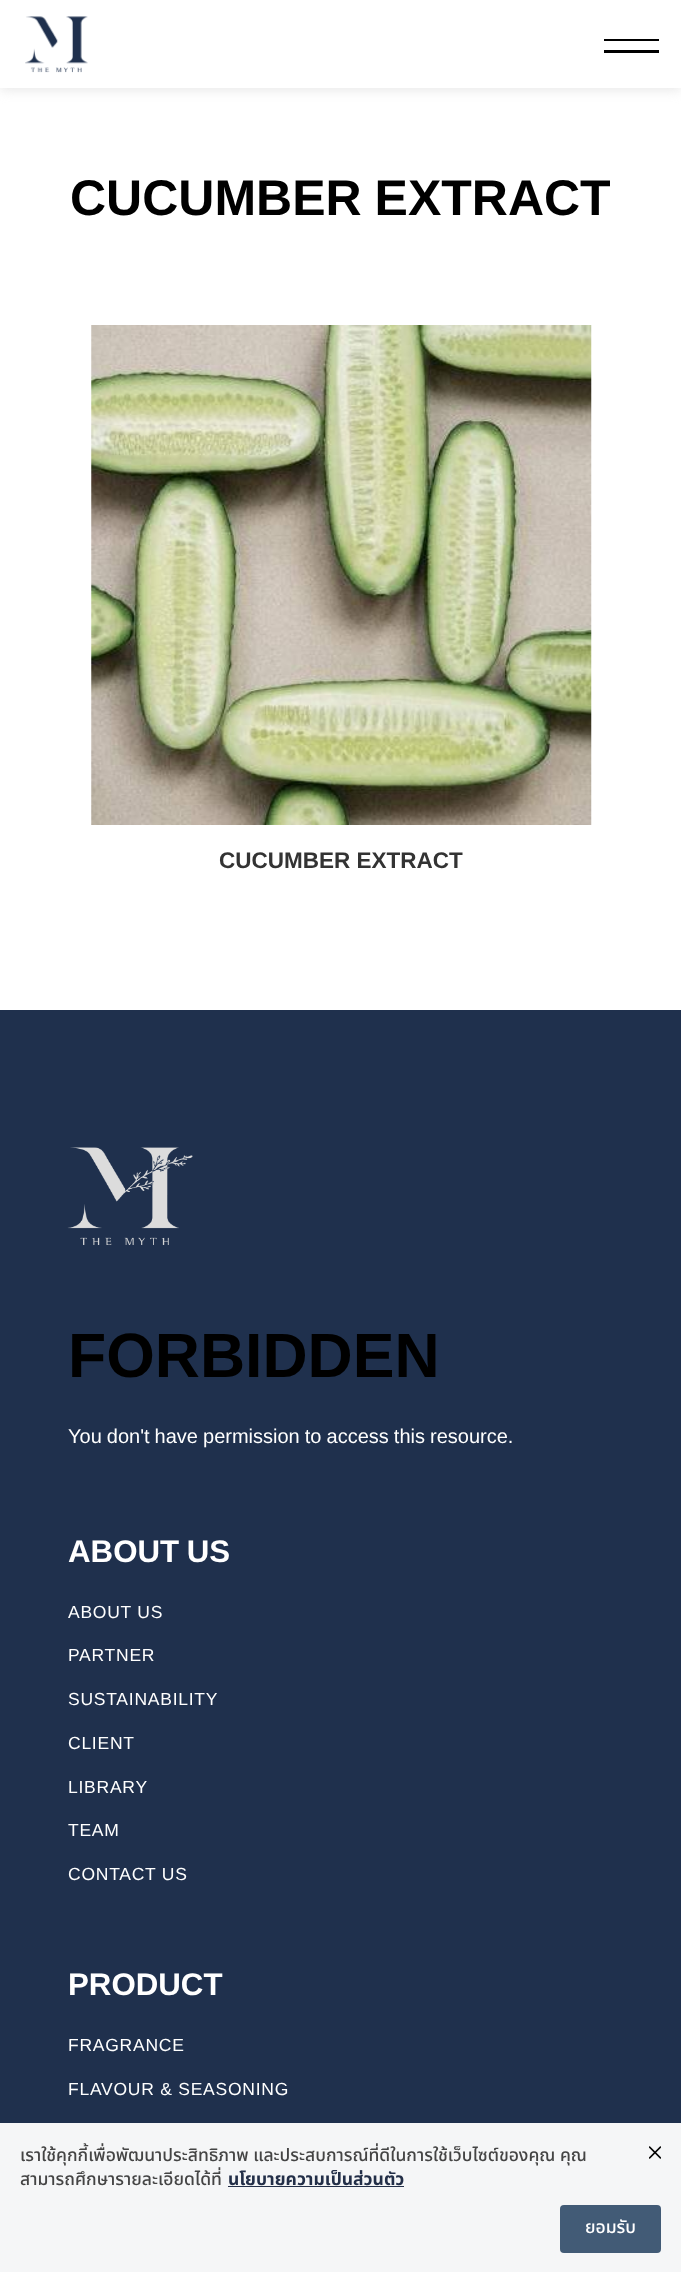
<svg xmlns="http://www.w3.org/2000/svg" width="681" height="2272">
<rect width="100%" height="100%" fill="#fff"/>
<rect y="3" width="681" height="87" fill="#e7e7e7" filter="blur(6px)"/>
<rect width="681" height="88" fill="#fff"/>
<image x="25" y="16" width="63" height="57" href="media/1.png"/>
<rect x="604" y="39" width="55" height="2" fill="#000"/>
<rect x="604" y="50" width="55" height="3" fill="#000"/>
<text x="70" y="215" word-spacing="-1" style="font-family:Liberation Sans;font-size:50px;font-weight:bold;fill:#000">CUCUMBER EXTRACT</text>
<image x="91" y="325" width="501" height="500" href="media/2.png"/>
<text x="219" y="868" style="font-family:Liberation Sans;font-size:22.5px;font-weight:bold;fill:#333">CUCUMBER EXTRACT</text>
<rect y="1010" width="681" height="1113" fill="#1f304d"/>
<rect y="2123" width="681" height="149" fill="#f5f6f7"/>
<image x="67" y="1147" width="126" height="98" href="media/3.png"/>
<text x="68" y="1377" style="font-family:Liberation Sans;font-size:62.5px;font-weight:bold;fill:#000">FORBIDDEN</text>
<text x="68" y="1443" word-spacing="-0.5" style="font-family:Liberation Sans;font-size:20px;fill:#fff">You don't have permission to access this resource.</text>
<text x="68" y="1562" word-spacing="-1" style="font-family:Liberation Sans;font-size:31.25px;font-weight:bold;fill:#fff">ABOUT US</text>
<text x="68" y="1618" style="font-family:Liberation Sans;font-size:17.5px;letter-spacing:0.75px;fill:#fff">ABOUT US</text>
<text x="68" y="1661" style="font-family:Liberation Sans;font-size:17.5px;letter-spacing:0.75px;fill:#fff">PARTNER</text>
<text x="68" y="1705" style="font-family:Liberation Sans;font-size:17.5px;letter-spacing:0.75px;fill:#fff">SUSTAINABILITY</text>
<text x="68" y="1749" style="font-family:Liberation Sans;font-size:17.5px;letter-spacing:0.75px;fill:#fff">CLIENT</text>
<text x="68" y="1793" style="font-family:Liberation Sans;font-size:17.5px;letter-spacing:0.75px;fill:#fff">LIBRARY</text>
<text x="68" y="1836" style="font-family:Liberation Sans;font-size:17.5px;letter-spacing:0.75px;fill:#fff">TEAM</text>
<text x="68" y="1880" style="font-family:Liberation Sans;font-size:17.5px;letter-spacing:0.75px;fill:#fff">CONTACT US</text>
<text x="68" y="1995" style="font-family:Liberation Sans;font-size:31.25px;font-weight:bold;fill:#fff">PRODUCT</text>
<text x="68" y="2051" style="font-family:Liberation Sans;font-size:17.5px;letter-spacing:0.75px;fill:#fff">FRAGRANCE</text>
<text x="68" y="2095" style="font-family:Liberation Sans;font-size:17.5px;letter-spacing:0.75px;fill:#fff">FLAVOUR &amp; SEASONING</text>
<text x="20" y="2161" style="font-family:Noto Sans Thai;font-size:17.5px;font-weight:500;fill:#444">เราใช้คุกกี้เพื่อพัฒนาประสิทธิภาพ และประสบการณ์ที่ดีในการใช้เว็บไซต์ของคุณ คุณ</text>
<text x="20" y="2185" style="font-family:Noto Sans Thai;font-size:17.5px;font-weight:500;fill:#444">สามารถศึกษารายละเอียดได้ที่</text>
<text x="228" y="2185" style="font-family:Noto Sans Thai;font-size:17.5px;font-weight:bold;fill:#232f48">นโยบายความเป็นส่วนตัว</text>
<rect x="228" y="2186" width="176" height="1" fill="#232f48"/>
<image x="649" y="2146" width="12" height="13" href="media/4.png"/>
<rect x="560" y="2205" width="101" height="48" rx="4" fill="#425b76"/>
<text x="585" y="2233" style="font-family:Noto Sans Thai;font-size:17.5px;font-weight:500;fill:#fff">ยอมรับ</text>
</svg>
